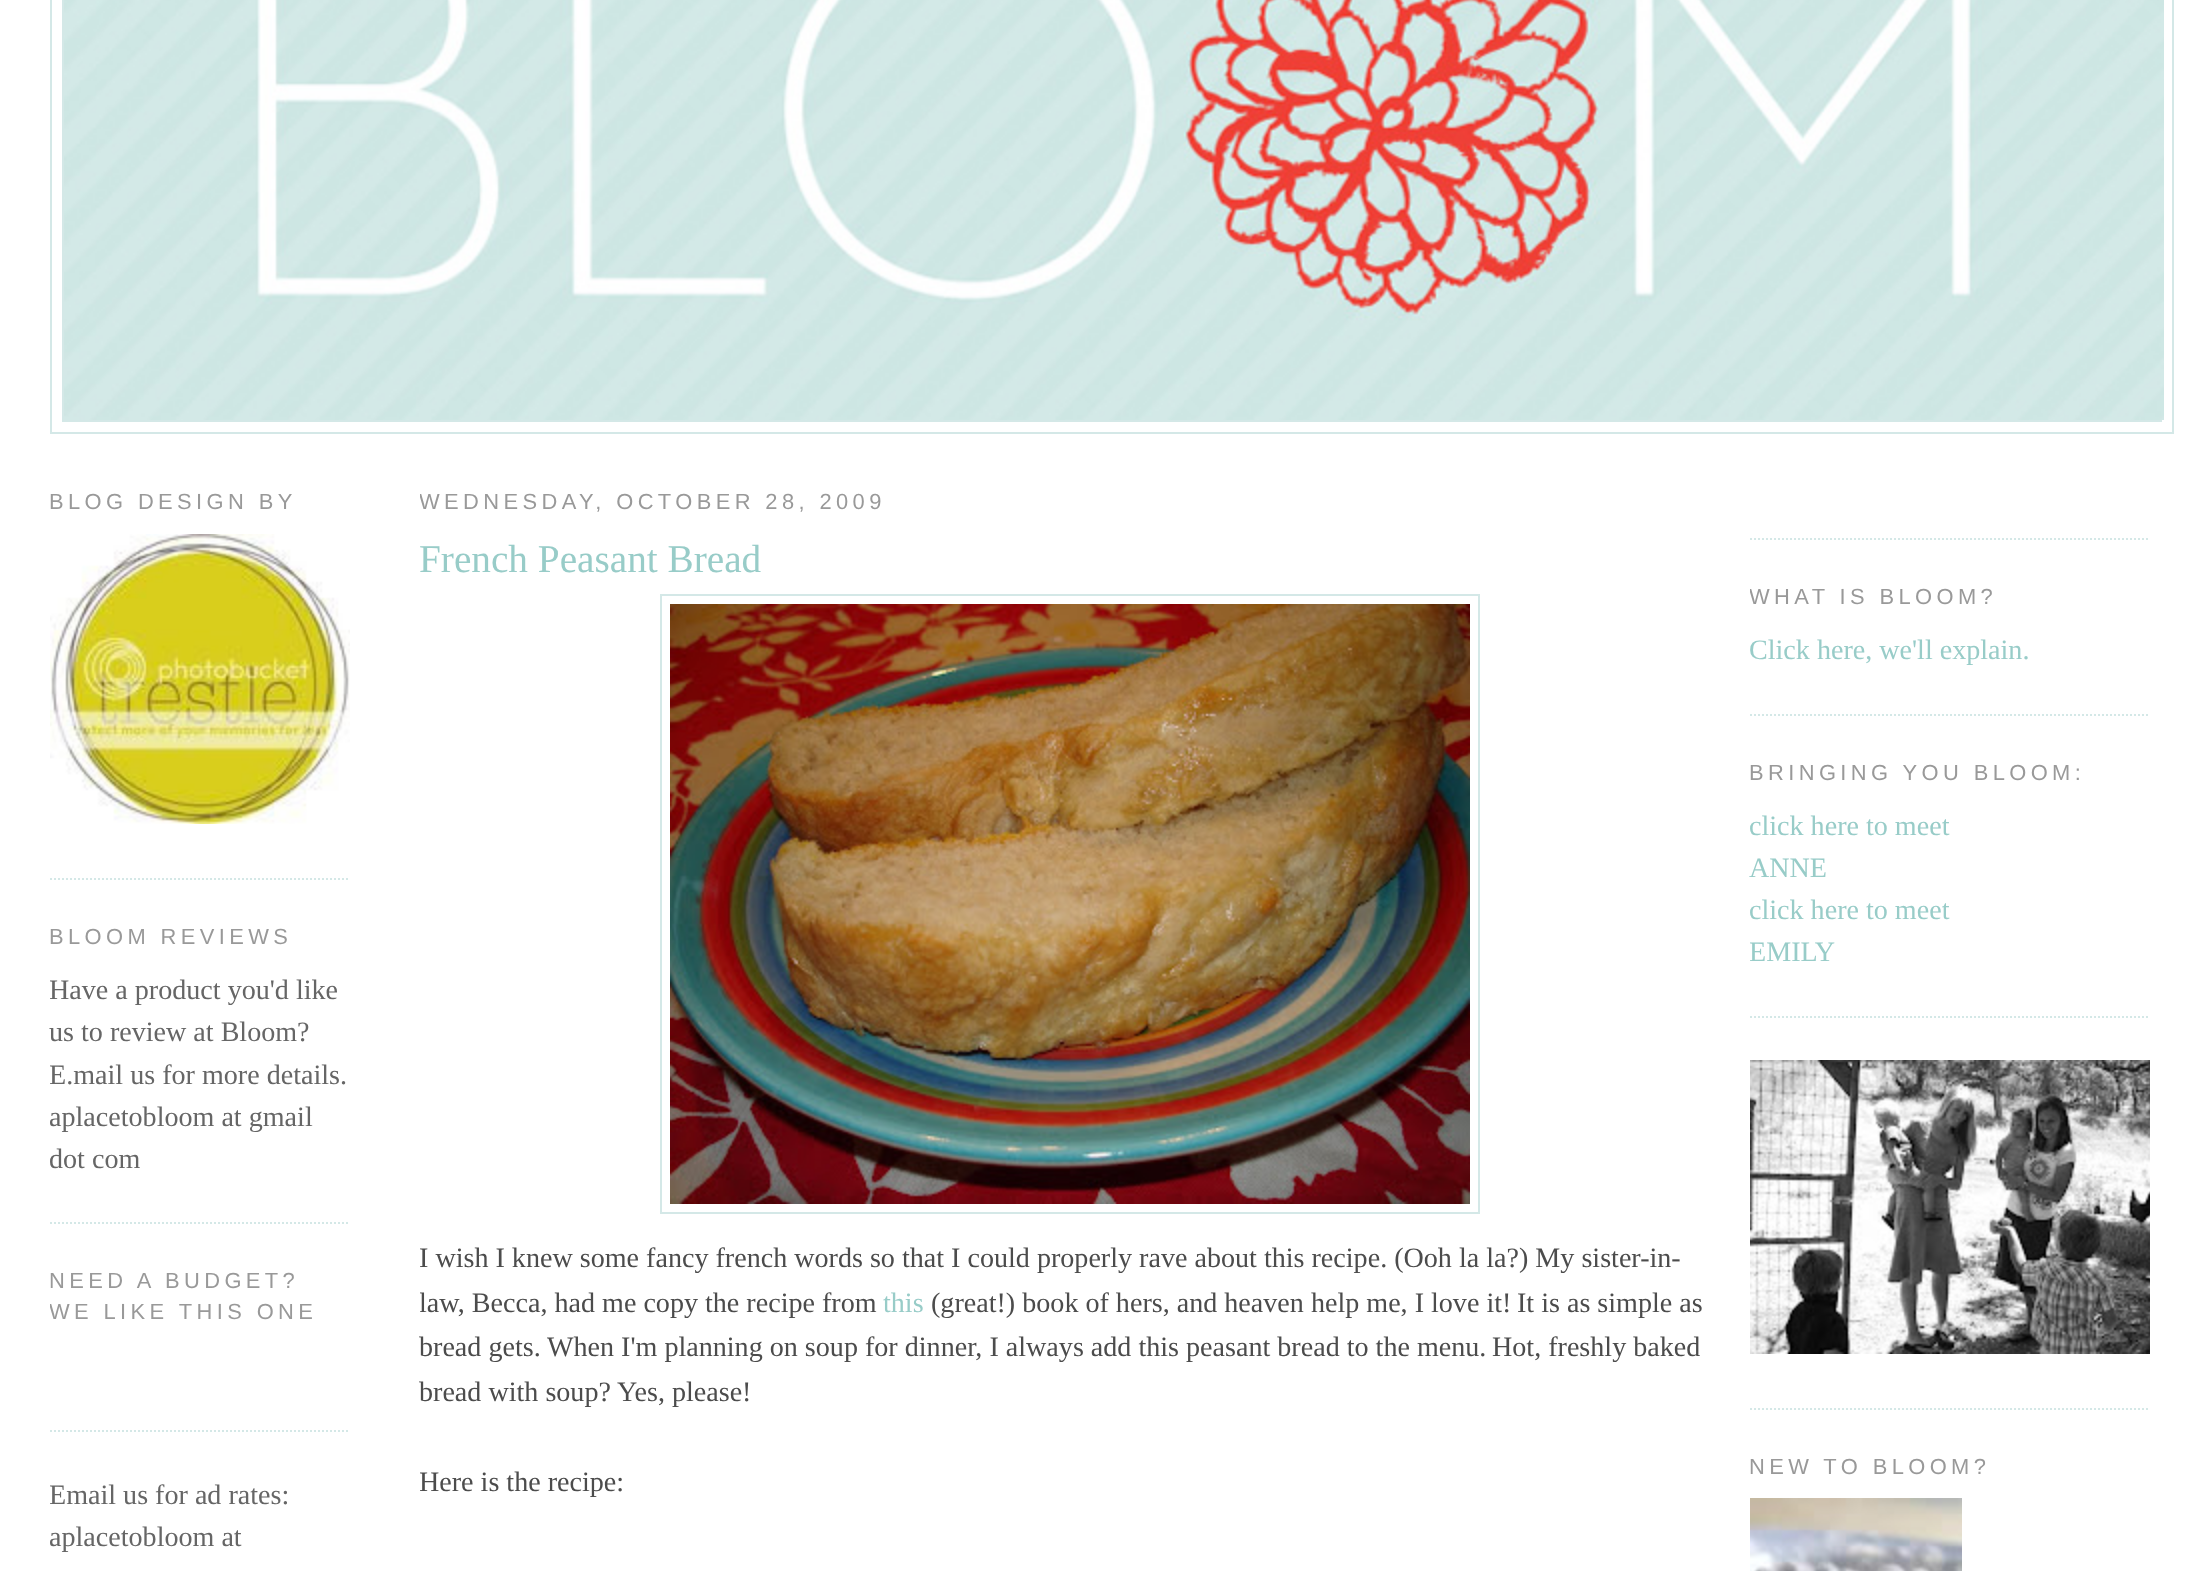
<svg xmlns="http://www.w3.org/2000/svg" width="2198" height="1571">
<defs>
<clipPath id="clip1"><rect x="50" y="454" width="300" height="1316"/></clipPath>
<clipPath id="clip2"><rect x="420" y="454" width="1300" height="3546"/></clipPath>
<clipPath id="clip3"><rect x="1750" y="454" width="400" height="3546"/></clipPath>
</defs>
<rect width="100%" height="100%" fill="#fff"/>
<rect x="51" y="-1" width="2122" height="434" fill="none" stroke="#d4e8e7" stroke-width="2"/>
<rect x="63" y="-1" width="2098" height="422" fill="none" stroke="#d4e8e7" stroke-width="2"/>
<image x="64" y="0" width="2100" height="420" href="media/1.png"/>
<path d="M50 879h300" fill="none" stroke="#d4e8e7" stroke-width="2" stroke-dasharray="2 2"/>
<text x="49" y="509" style="font-family:Liberation Sans;font-size:21.9px;letter-spacing:4.4px;fill:#999">BLOG DESIGN BY</text>
<image x="50" y="534" width="300" height="290" href="media/2.png"/>
<path d="M50 1223h300" fill="none" stroke="#d4e8e7" stroke-width="2" stroke-dasharray="2 2"/>
<text x="49" y="944" style="font-family:Liberation Sans;font-size:21.9px;letter-spacing:4.4px;fill:#999">BLOOM REVIEWS</text>
<g clip-path="url(#clip1)">
<text x="49" y="999" style="font-family:Liberation Serif;font-size:28.1px;fill:#666">Have a product you'd like</text>
</g>
<text x="49" y="1041" style="font-family:Liberation Serif;font-size:28.1px;fill:#666">us to review at Bloom?</text>
<g clip-path="url(#clip1)">
<text x="49" y="1084" style="font-family:Liberation Serif;font-size:28.1px;fill:#666">E.mail us for more details.</text>
</g>
<text x="49" y="1126" style="font-family:Liberation Serif;font-size:28.1px;fill:#666">aplacetobloom at gmail</text>
<text x="49" y="1168" style="font-family:Liberation Serif;font-size:28.1px;fill:#666">dot com</text>
<path d="M50 1431h300" fill="none" stroke="#d4e8e7" stroke-width="2" stroke-dasharray="2 2"/>
<text x="49" y="1288" style="font-family:Liberation Sans;font-size:21.9px;letter-spacing:4.4px;fill:#999">NEED A BUDGET?</text>
<g clip-path="url(#clip1)">
<text x="49" y="1319" style="font-family:Liberation Sans;font-size:21.9px;letter-spacing:4.4px;fill:#999">WE LIKE THIS ONE</text>
<text x="49" y="1504" style="font-family:Liberation Serif;font-size:28.1px;fill:#666">Email us for ad rates:</text>
</g>
<text x="49" y="1546" style="font-family:Liberation Serif;font-size:28.1px;fill:#666">aplacetobloom at</text>
<g clip-path="url(#clip2)">
<text x="419" y="509" style="font-family:Liberation Sans;font-size:21.9px;letter-spacing:4.4px;fill:#999">WEDNESDAY, OCTOBER 28, 2009</text>
</g>
<text x="419" y="572" style="font-family:Liberation Serif;font-size:39.25px;fill:#98ccc8">French Peasant Bread</text>
<rect x="661" y="595" width="818" height="618" fill="none" stroke="#d4e8e7" stroke-width="2"/>
<image x="670" y="604" width="800" height="600" href="media/3.png"/>
<text x="419" y="1267" style="font-family:Liberation Serif;font-size:28.1px;fill:#4c4c4c">I wish I knew some fancy french words so that I could properly rave about this recipe. (Ooh la la?) My sister-in-</text>
<g clip-path="url(#clip2)">
<text x="419" y="1312" style="font-family:Liberation Serif;font-size:28.1px;fill:#4c4c4c">law, Becca, had me copy the recipe from</text>
</g>
<text x="883" y="1312" style="font-family:Liberation Serif;font-size:28.1px;fill:#98ccc8">this</text>
<text x="931" y="1312" style="font-family:Liberation Serif;font-size:28.1px;fill:#4c4c4c">(great!) book of hers, and heaven help me, I love it!</text>
<text x="1517" y="1312" style="font-family:Liberation Serif;font-size:28.1px;fill:#4c4c4c">It is as simple as</text>
<text x="419" y="1356" style="font-family:Liberation Serif;font-size:28.1px;fill:#4c4c4c">bread gets.</text>
<text x="547" y="1356" style="font-family:Liberation Serif;font-size:28.1px;fill:#4c4c4c">When I'm planning on soup for dinner, I always add this peasant bread to the menu.</text>
<text x="1492" y="1356" style="font-family:Liberation Serif;font-size:28.1px;fill:#4c4c4c">Hot, freshly baked</text>
<text x="419" y="1401" style="font-family:Liberation Serif;font-size:28.1px;fill:#4c4c4c">bread with soup?</text>
<text x="617" y="1401" style="font-family:Liberation Serif;font-size:28.1px;fill:#4c4c4c">Yes, please!</text>
<g clip-path="url(#clip2)">
<text x="419" y="1491" style="font-family:Liberation Serif;font-size:28.1px;fill:#4c4c4c">Here is the recipe:</text>
</g>
<path d="M1750 539h400" fill="none" stroke="#d4e8e7" stroke-width="2" stroke-dasharray="2 2"/>
<path d="M1750 715h400" fill="none" stroke="#d4e8e7" stroke-width="2" stroke-dasharray="2 2"/>
<g clip-path="url(#clip3)">
<text x="1749" y="604" style="font-family:Liberation Sans;font-size:21.9px;letter-spacing:4.4px;fill:#999">WHAT IS BLOOM?</text>
</g>
<text x="1749" y="659" style="font-family:Liberation Serif;font-size:28.1px;fill:#98ccc8">Click here, we'll explain.</text>
<path d="M1750 1017h400" fill="none" stroke="#d4e8e7" stroke-width="2" stroke-dasharray="2 2"/>
<text x="1749" y="780" style="font-family:Liberation Sans;font-size:21.9px;letter-spacing:4.4px;fill:#999">BRINGING YOU BLOOM:</text>
<text x="1749" y="835" style="font-family:Liberation Serif;font-size:28.1px;fill:#98ccc8">click here to meet</text>
<text x="1749" y="877" style="font-family:Liberation Serif;font-size:28.1px;fill:#98ccc8">ANNE</text>
<text x="1749" y="919" style="font-family:Liberation Serif;font-size:28.1px;fill:#98ccc8">click here to meet</text>
<g clip-path="url(#clip3)">
<text x="1749" y="961" style="font-family:Liberation Serif;font-size:28.1px;fill:#98ccc8">EMILY</text>
</g>
<path d="M1750 1409h400" fill="none" stroke="#d4e8e7" stroke-width="2" stroke-dasharray="2 2"/>
<image x="1750" y="1060" width="400" height="294" href="media/4.png"/>
<text x="1749" y="1474" style="font-family:Liberation Sans;font-size:21.9px;letter-spacing:4.4px;fill:#999">NEW TO BLOOM?</text>
<image x="1750" y="1498" width="212" height="73" href="media/5.png"/>
</svg>
